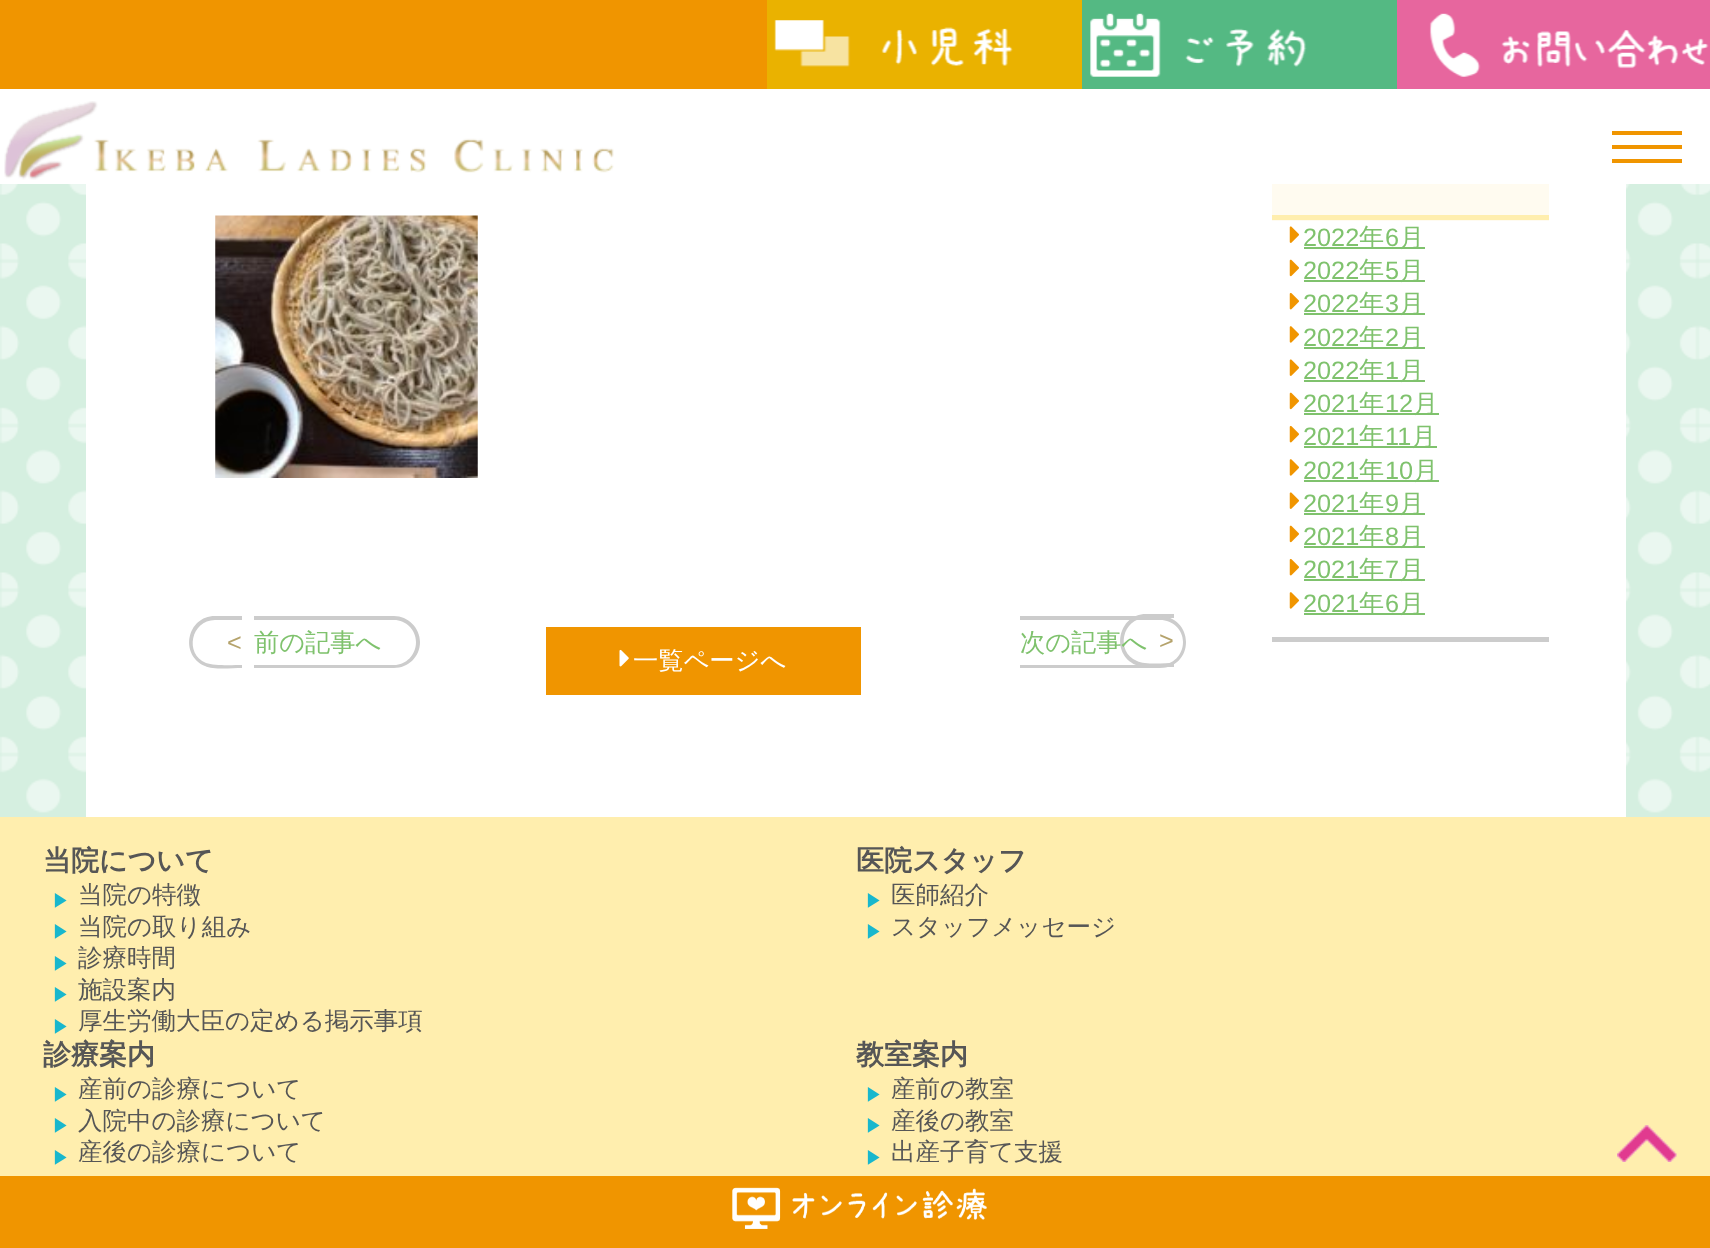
<svg xmlns="http://www.w3.org/2000/svg" width="1710" height="1248">
<rect width="100%" height="100%" fill="#d5efe0"/>
<image x="0" y="184" width="1710" height="629" href="media/1.png"/>
<rect y="89" width="1710" height="95" fill="#fff"/>
<rect width="767" height="89" fill="#f09500"/>
<rect x="767" width="315" height="89" fill="#eab200"/>
<image x="774" y="20" width="239" height="47" href="media/2.png"/>
<rect x="1082" width="315" height="89" fill="#54b983"/>
<image x="1090" y="13" width="217" height="64" href="media/3.png"/>
<rect x="1397" width="313" height="89" fill="#e7669e"/>
<image x="1429" y="13" width="280" height="64" href="media/4.png"/>
<image x="4" y="101" width="610" height="79" href="media/5.png"/>
<rect x="1612" y="145" width="70" height="4" fill="#f09500"/>
<rect x="1612" y="131" width="70" height="4" fill="#f09500"/>
<rect x="1612" y="159" width="70" height="4" fill="#f09500"/>
<rect x="86" y="184" width="1540" height="633" fill="#fff"/>
<rect x="1272" y="637" width="277" height="5" fill="#ccc"/>
<rect x="1272" y="184" width="277" height="37" fill="#fffbf0"/>
<rect x="1272" y="215" width="277" height="5" fill="#ffeeae"/>
<image x="1289" y="226" width="10" height="17" href="media/6.png"/>
<text x="1303" y="246" style="font-family:Liberation Sans;font-size:25.25px;fill:#7fc26d">2022</text>
<rect x="1304" y="247" width="121" height="2" fill="#7fc26d"/>
<text x="1359" y="246" style="font-family:WenQuanYi Zen Hei;font-size:25.25px;font-weight:500;fill:#7fc26d">年</text>
<text x="1385" y="246" style="font-family:Liberation Sans;font-size:25.25px;fill:#7fc26d">6</text>
<text x="1399" y="246" style="font-family:WenQuanYi Zen Hei;font-size:25.25px;font-weight:500;fill:#7fc26d">月</text>
<image x="1289" y="259" width="10" height="18" href="media/7.png"/>
<text x="1303" y="279" style="font-family:Liberation Sans;font-size:25.25px;fill:#7fc26d">2022</text>
<rect x="1304" y="280" width="121" height="2" fill="#7fc26d"/>
<text x="1359" y="279" style="font-family:WenQuanYi Zen Hei;font-size:25.25px;font-weight:500;fill:#7fc26d">年</text>
<text x="1385" y="279" style="font-family:Liberation Sans;font-size:25.25px;fill:#7fc26d">5</text>
<text x="1399" y="279" style="font-family:WenQuanYi Zen Hei;font-size:25.25px;font-weight:500;fill:#7fc26d">月</text>
<image x="1289" y="292" width="10" height="18" href="media/8.png"/>
<text x="1303" y="312" style="font-family:Liberation Sans;font-size:25.25px;fill:#7fc26d">2022</text>
<rect x="1304" y="313" width="121" height="2" fill="#7fc26d"/>
<text x="1359" y="312" style="font-family:WenQuanYi Zen Hei;font-size:25.25px;font-weight:500;fill:#7fc26d">年</text>
<text x="1385" y="312" style="font-family:Liberation Sans;font-size:25.25px;fill:#7fc26d">3</text>
<text x="1399" y="312" style="font-family:WenQuanYi Zen Hei;font-size:25.25px;font-weight:500;fill:#7fc26d">月</text>
<image x="1289" y="326" width="10" height="17" href="media/9.png"/>
<text x="1303" y="346" style="font-family:Liberation Sans;font-size:25.25px;fill:#7fc26d">2022</text>
<rect x="1304" y="347" width="121" height="2" fill="#7fc26d"/>
<text x="1359" y="346" style="font-family:WenQuanYi Zen Hei;font-size:25.25px;font-weight:500;fill:#7fc26d">年</text>
<text x="1385" y="346" style="font-family:Liberation Sans;font-size:25.25px;fill:#7fc26d">2</text>
<text x="1399" y="346" style="font-family:WenQuanYi Zen Hei;font-size:25.25px;font-weight:500;fill:#7fc26d">月</text>
<image x="1289" y="359" width="10" height="17" href="media/6.png"/>
<text x="1303" y="379" style="font-family:Liberation Sans;font-size:25.25px;fill:#7fc26d">2022</text>
<rect x="1304" y="380" width="121" height="2" fill="#7fc26d"/>
<text x="1359" y="379" style="font-family:WenQuanYi Zen Hei;font-size:25.25px;font-weight:500;fill:#7fc26d">年</text>
<text x="1385" y="379" style="font-family:Liberation Sans;font-size:25.25px;fill:#7fc26d">1</text>
<text x="1399" y="379" style="font-family:WenQuanYi Zen Hei;font-size:25.25px;font-weight:500;fill:#7fc26d">月</text>
<image x="1289" y="392" width="10" height="18" href="media/7.png"/>
<text x="1303" y="412" style="font-family:Liberation Sans;font-size:25.25px;fill:#7fc26d">2021</text>
<rect x="1304" y="413" width="135" height="2" fill="#7fc26d"/>
<text x="1359" y="412" style="font-family:WenQuanYi Zen Hei;font-size:25.25px;font-weight:500;fill:#7fc26d">年</text>
<text x="1385" y="412" style="font-family:Liberation Sans;font-size:25.25px;fill:#7fc26d">12</text>
<text x="1413" y="412" style="font-family:WenQuanYi Zen Hei;font-size:25.25px;font-weight:500;fill:#7fc26d">月</text>
<image x="1289" y="425" width="10" height="18" href="media/8.png"/>
<text x="1303" y="445" style="font-family:Liberation Sans;font-size:25.25px;fill:#7fc26d">2021</text>
<rect x="1304" y="446" width="133" height="2" fill="#7fc26d"/>
<text x="1359" y="445" style="font-family:WenQuanYi Zen Hei;font-size:25.25px;font-weight:500;fill:#7fc26d">年</text>
<text x="1385" y="445" style="font-family:Liberation Sans;font-size:25.25px;fill:#7fc26d">11</text>
<text x="1411" y="445" style="font-family:WenQuanYi Zen Hei;font-size:25.25px;font-weight:500;fill:#7fc26d">月</text>
<image x="1289" y="459" width="10" height="17" href="media/9.png"/>
<text x="1303" y="479" style="font-family:Liberation Sans;font-size:25.25px;fill:#7fc26d">2021</text>
<rect x="1304" y="480" width="135" height="2" fill="#7fc26d"/>
<text x="1359" y="479" style="font-family:WenQuanYi Zen Hei;font-size:25.25px;font-weight:500;fill:#7fc26d">年</text>
<text x="1385" y="479" style="font-family:Liberation Sans;font-size:25.25px;fill:#7fc26d">10</text>
<text x="1413" y="479" style="font-family:WenQuanYi Zen Hei;font-size:25.25px;font-weight:500;fill:#7fc26d">月</text>
<image x="1289" y="492" width="10" height="17" href="media/6.png"/>
<text x="1303" y="512" style="font-family:Liberation Sans;font-size:25.25px;fill:#7fc26d">2021</text>
<rect x="1304" y="513" width="121" height="2" fill="#7fc26d"/>
<text x="1359" y="512" style="font-family:WenQuanYi Zen Hei;font-size:25.25px;font-weight:500;fill:#7fc26d">年</text>
<text x="1385" y="512" style="font-family:Liberation Sans;font-size:25.25px;fill:#7fc26d">9</text>
<text x="1399" y="512" style="font-family:WenQuanYi Zen Hei;font-size:25.25px;font-weight:500;fill:#7fc26d">月</text>
<image x="1289" y="525" width="10" height="18" href="media/7.png"/>
<text x="1303" y="545" style="font-family:Liberation Sans;font-size:25.25px;fill:#7fc26d">2021</text>
<rect x="1304" y="546" width="121" height="2" fill="#7fc26d"/>
<text x="1359" y="545" style="font-family:WenQuanYi Zen Hei;font-size:25.25px;font-weight:500;fill:#7fc26d">年</text>
<text x="1385" y="545" style="font-family:Liberation Sans;font-size:25.25px;fill:#7fc26d">8</text>
<text x="1399" y="545" style="font-family:WenQuanYi Zen Hei;font-size:25.25px;font-weight:500;fill:#7fc26d">月</text>
<image x="1289" y="558" width="10" height="18" href="media/8.png"/>
<text x="1303" y="578" style="font-family:Liberation Sans;font-size:25.25px;fill:#7fc26d">2021</text>
<rect x="1304" y="579" width="121" height="2" fill="#7fc26d"/>
<text x="1359" y="578" style="font-family:WenQuanYi Zen Hei;font-size:25.25px;font-weight:500;fill:#7fc26d">年</text>
<text x="1385" y="578" style="font-family:Liberation Sans;font-size:25.25px;fill:#7fc26d">7</text>
<text x="1399" y="578" style="font-family:WenQuanYi Zen Hei;font-size:25.25px;font-weight:500;fill:#7fc26d">月</text>
<image x="1289" y="592" width="10" height="17" href="media/9.png"/>
<text x="1303" y="612" style="font-family:Liberation Sans;font-size:25.25px;fill:#7fc26d">2021</text>
<rect x="1304" y="613" width="121" height="2" fill="#7fc26d"/>
<text x="1359" y="612" style="font-family:WenQuanYi Zen Hei;font-size:25.25px;font-weight:500;fill:#7fc26d">年</text>
<text x="1385" y="612" style="font-family:Liberation Sans;font-size:25.25px;fill:#7fc26d">6</text>
<text x="1399" y="612" style="font-family:WenQuanYi Zen Hei;font-size:25.25px;font-weight:500;fill:#7fc26d">月</text>
<image x="215" y="215" width="263" height="263" href="media/10.png"/>
<path d="M215 616h27v52c-10 0-29 2-37-2c-26-11-18-50 10-50zm0 4h27v45c-9 0-28 1-36-2c-22-9-15-43 9-43z" fill="#ccc" fill-rule="evenodd"/>
<path d="M254 616h140c14 0 26 12 26 26c0 15-12 26-26 26h-140zm0 4h140c12 0 22 10 22 22c0 13-10 23-22 23h-140z" fill="#ccc" fill-rule="evenodd"/>
<text x="227" y="651" style="font-family:Liberation Sans;font-size:25.25px;fill:#b5a36c">&lt;</text>
<text x="254" y="651" style="font-family:WenQuanYi Zen Hei;font-size:25.25px;font-weight:500;fill:#7fc26d">前の記事へ</text>
<path d="M1146 614h28v53c-10 0-29 1-38-2c-26-11-18-51 10-51zm0 4h28v45c-9 0-29 2-37-2c-22-9-15-43 9-43z" fill="#ccc" fill-rule="evenodd"/>
<path d="M1020 616h140c15 0 26 12 26 26c0 15-11 26-26 26h-140zm0 4h140c13 0 23 10 23 22c0 13-10 23-23 23h-140z" fill="#ccc" fill-rule="evenodd"/>
<text x="1020" y="651" style="font-family:WenQuanYi Zen Hei;font-size:25.25px;font-weight:500;fill:#7fc26d">次の記事へ</text>
<text x="1159" y="649" style="font-family:Liberation Sans;font-size:25.25px;fill:#b5a36c">&gt;</text>
<rect x="546" y="627" width="315" height="68" fill="#f09500"/>
<image x="619" y="649" width="10" height="18" href="media/11.png"/>
<text x="633" y="669" style="font-family:WenQuanYi Zen Hei;font-size:25.25px;font-weight:500;fill:#fff">一覧ページへ</text>
<rect y="817" width="1710" height="359" fill="#ffeeae"/>
<text x="43" y="870" style="font-family:WenQuanYi Zen Hei;font-size:28px;font-weight:bold;fill:#565656">当院について</text>
<text x="52" y="907" style="font-family:WenQuanYi Zen Hei;font-size:18px;font-weight:500;fill:#18b7cd">▶</text>
<text x="78" y="903" style="font-family:WenQuanYi Zen Hei;font-size:24.5px;font-weight:500;fill:#565656">当院の特徴</text>
<text x="52" y="938" style="font-family:WenQuanYi Zen Hei;font-size:18px;font-weight:500;fill:#18b7cd">▶</text>
<text x="78" y="935" style="font-family:WenQuanYi Zen Hei;font-size:24.5px;font-weight:500;fill:#565656">当院の取り組み</text>
<text x="52" y="970" style="font-family:WenQuanYi Zen Hei;font-size:18px;font-weight:500;fill:#18b7cd">▶</text>
<text x="78" y="966" style="font-family:WenQuanYi Zen Hei;font-size:24.5px;font-weight:500;fill:#565656">診療時間</text>
<text x="52" y="1001" style="font-family:WenQuanYi Zen Hei;font-size:18px;font-weight:500;fill:#18b7cd">▶</text>
<text x="78" y="998" style="font-family:WenQuanYi Zen Hei;font-size:24.5px;font-weight:500;fill:#565656">施設案内</text>
<text x="52" y="1033" style="font-family:WenQuanYi Zen Hei;font-size:18px;font-weight:500;fill:#18b7cd">▶</text>
<text x="78" y="1029" style="font-family:WenQuanYi Zen Hei;font-size:24.5px;font-weight:500;fill:#565656">厚生労働大臣の定める掲示事項</text>
<text x="856" y="870" style="font-family:WenQuanYi Zen Hei;font-size:28px;font-weight:bold;fill:#565656">医院スタッフ</text>
<text x="865" y="907" style="font-family:WenQuanYi Zen Hei;font-size:18px;font-weight:500;fill:#18b7cd">▶</text>
<text x="891" y="903" style="font-family:WenQuanYi Zen Hei;font-size:24.5px;font-weight:500;fill:#565656">医師紹介</text>
<text x="865" y="938" style="font-family:WenQuanYi Zen Hei;font-size:18px;font-weight:500;fill:#18b7cd">▶</text>
<text x="891" y="935" style="font-family:WenQuanYi Zen Hei;font-size:24.5px;font-weight:500;fill:#565656">スタッフメッセージ</text>
<text x="43" y="1064" style="font-family:WenQuanYi Zen Hei;font-size:28px;font-weight:bold;fill:#565656">診療案内</text>
<text x="52" y="1101" style="font-family:WenQuanYi Zen Hei;font-size:18px;font-weight:500;fill:#18b7cd">▶</text>
<text x="78" y="1097" style="font-family:WenQuanYi Zen Hei;font-size:24.5px;font-weight:500;fill:#565656">産前の診療について</text>
<text x="52" y="1132" style="font-family:WenQuanYi Zen Hei;font-size:18px;font-weight:500;fill:#18b7cd">▶</text>
<text x="78" y="1129" style="font-family:WenQuanYi Zen Hei;font-size:24.5px;font-weight:500;fill:#565656">入院中の診療について</text>
<text x="52" y="1164" style="font-family:WenQuanYi Zen Hei;font-size:18px;font-weight:500;fill:#18b7cd">▶</text>
<text x="78" y="1160" style="font-family:WenQuanYi Zen Hei;font-size:24.5px;font-weight:500;fill:#565656">産後の診療について</text>
<text x="856" y="1064" style="font-family:WenQuanYi Zen Hei;font-size:28px;font-weight:bold;fill:#565656">教室案内</text>
<text x="865" y="1101" style="font-family:WenQuanYi Zen Hei;font-size:18px;font-weight:500;fill:#18b7cd">▶</text>
<text x="891" y="1097" style="font-family:WenQuanYi Zen Hei;font-size:24.5px;font-weight:500;fill:#565656">産前の教室</text>
<text x="865" y="1132" style="font-family:WenQuanYi Zen Hei;font-size:18px;font-weight:500;fill:#18b7cd">▶</text>
<text x="891" y="1129" style="font-family:WenQuanYi Zen Hei;font-size:24.5px;font-weight:500;fill:#565656">産後の教室</text>
<text x="865" y="1164" style="font-family:WenQuanYi Zen Hei;font-size:18px;font-weight:500;fill:#18b7cd">▶</text>
<text x="891" y="1160" style="font-family:WenQuanYi Zen Hei;font-size:24.5px;font-weight:500;fill:#565656">出産子育て支援</text>
<image x="1617" y="1125" width="60" height="37" href="media/12.png"/>
<rect y="1176" width="1710" height="72" fill="#f09500"/>
<image x="732" y="1187" width="255" height="42" href="media/13.png"/>
</svg>
